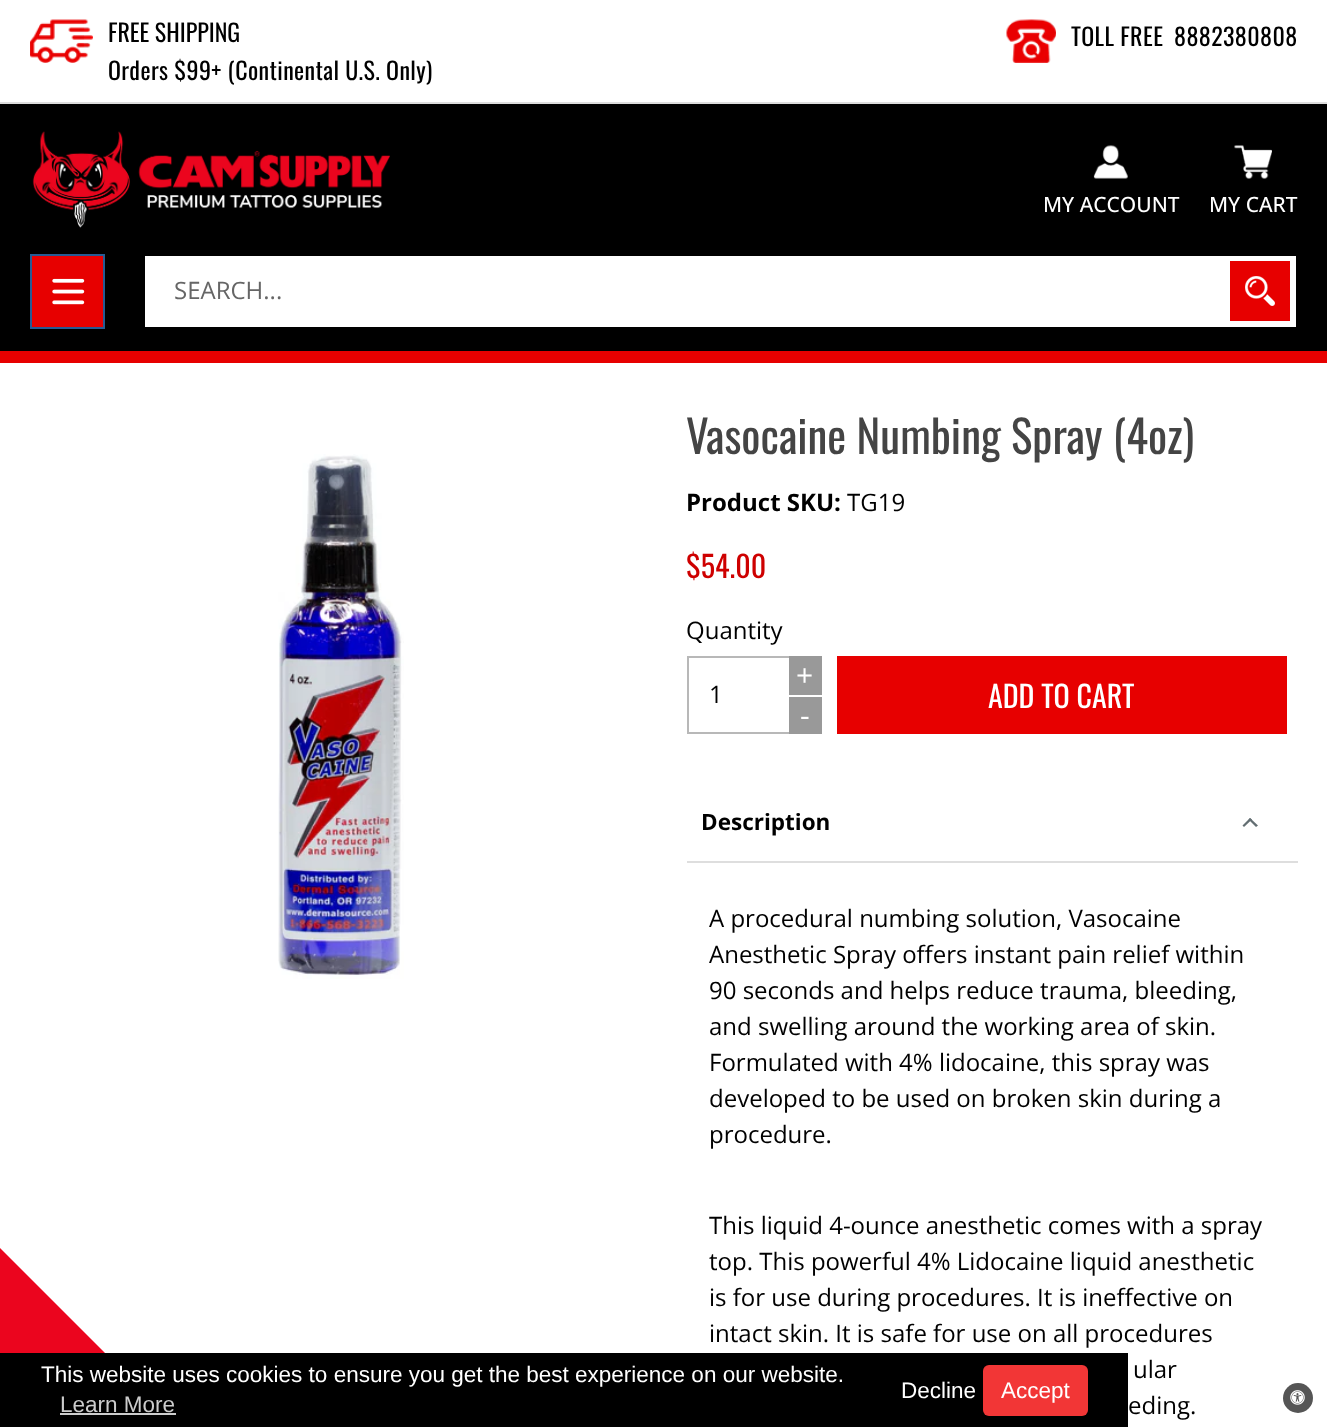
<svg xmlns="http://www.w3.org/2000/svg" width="1327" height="1427">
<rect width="100%" height="100%" fill="#fff"/>
<rect y="351" width="1327" height="12" fill="#e70000"/>
<rect y="102" width="1327" height="2" fill="#ddd"/>
<image x="30" y="19" width="63" height="44" href="media/1.png"/>
<text x="108" y="42" style="font-family:Oswald;font-size:24px;fill:#000">FREE SHIPPING</text>
<text x="108" y="80" style="font-family:Oswald;font-size:24px;letter-spacing:0.4px;fill:#000">Orders $99+ (Continental U.S. Only)</text>
<image x="1006" y="19" width="50" height="44" href="media/2.png"/>
<text x="1071" y="46" style="font-family:Oswald;font-size:24px;letter-spacing:0.4px;fill:#000">TOLL FREE</text>
<text x="1174" y="46" style="font-family:Oswald;font-size:24px;letter-spacing:0.4px;fill:#000">8882380808</text>
<rect y="104" width="1327" height="247" fill="#000"/>
<image x="32" y="131" width="358" height="97" href="media/3.png"/>
<image x="1093" y="145" width="35" height="34" href="media/4.png"/>
<text x="1043" y="212" style="font-family:Open Sans;font-size:21px;font-weight:500;fill:#fff">MY ACCOUNT</text>
<image x="1234" y="145" width="38" height="34" href="media/5.png"/>
<text x="1209" y="212" style="font-family:Open Sans;font-size:21px;font-weight:500;fill:#fff">MY CART</text>
<rect x="31" y="255" width="73" height="73" fill="#e70000" stroke="#265b94" stroke-width="2"/>
<image x="52" y="278" width="33" height="27" href="media/6.png"/>
<rect x="145" y="256" width="1151" height="71" fill="#fff"/>
<text x="174" y="299" style="font-family:Open Sans;font-size:24px;fill:#666">SEARCH...</text>
<rect x="1230" y="261" width="60" height="60" fill="#e70000"/>
<image x="1245" y="276" width="30" height="30" href="media/7.png"/>
<path d="M180 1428h-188v-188z" fill="#eb051e"/>
<image x="278" y="454" width="126" height="525" href="media/8.png"/>
<text x="686" y="454" style="font-family:Oswald;font-size:45px;fill:#444">Vasocaine Numbing Spray (4oz)</text>
<text x="686" y="511" style="font-family:Open Sans;font-size:24px;font-weight:bold;fill:#000">Product SKU:</text>
<text x="847" y="511" style="font-family:Open Sans;font-size:24px;fill:#000">TG19</text>
<text x="686" y="578" style="font-family:Oswald;font-size:30px;fill:#ce0000">$54.00</text>
<text x="686" y="639" style="font-family:Open Sans;font-size:24px;fill:#000">Quantity</text>
<rect x="688" y="657" width="133" height="76" fill="none" stroke="#b8b8b8" stroke-width="2"/>
<rect x="789" y="656" width="33" height="39" fill="#999"/>
<text x="796" y="686" style="font-family:Open Sans;font-size:30px;fill:#fff">+</text>
<text x="709" y="703" style="font-family:Open Sans;font-size:24px;fill:#000">1</text>
<rect x="789" y="697" width="33" height="37" fill="#999"/>
<rect x="820" y="695" width="2" height="2" fill="#fff"/>
<text x="800" y="726" style="font-family:Open Sans;font-size:30px;fill:#fff">-</text>
<rect x="837" y="656" width="450" height="78" fill="#e70000"/>
<text x="988" y="708" style="font-family:Oswald;font-size:30px;fill:#fff">ADD TO CART</text>
<rect x="687" y="861" width="611" height="2" fill="#dedede"/>
<text x="701" y="830" style="font-family:Open Sans;font-size:22.5px;font-weight:bold;fill:#000">Description</text>
<path d="M1242.5 825.5l7.5-7.5l2 1.5l-8 7.5z" fill="#636e72"/>
<path d="M1250 818l8 7.5l-2 1.5l-7.5-7.5z" fill="#636e72"/>
<text x="709" y="927" style="font-family:Open Sans;font-size:24px;fill:#000">A procedural numbing solution, Vasocaine</text>
<text x="709" y="963" style="font-family:Open Sans;font-size:24px;fill:#000">Anesthetic Spray offers instant pain relief within</text>
<text x="709" y="999" style="font-family:Open Sans;font-size:24px;fill:#000">90 seconds and helps reduce trauma, bleeding,</text>
<text x="709" y="1035" style="font-family:Open Sans;font-size:24px;fill:#000">and swelling around the working area of skin.</text>
<text x="709" y="1071" style="font-family:Open Sans;font-size:24px;fill:#000">Formulated with 4% lidocaine, this spray was</text>
<text x="709" y="1107" style="font-family:Open Sans;font-size:24px;fill:#000">developed to be used on broken skin during a</text>
<text x="709" y="1143" style="font-family:Open Sans;font-size:24px;fill:#000">procedure.</text>
<text x="709" y="1234" style="font-family:Open Sans;font-size:24px;fill:#000">This liquid 4-ounce anesthetic comes with a spray</text>
<text x="709" y="1270" style="font-family:Open Sans;font-size:24px;fill:#000">top. This powerful 4% Lidocaine liquid anesthetic</text>
<text x="709" y="1306" style="font-family:Open Sans;font-size:24px;fill:#000">is for use during procedures. It is ineffective on</text>
<text x="709" y="1342" style="font-family:Open Sans;font-size:24px;fill:#000">intact skin. It is safe for use on all procedures</text>
<text x="1133" y="1378" style="font-family:Open Sans;font-size:24px;fill:#000">ular</text>
<text x="1128" y="1414" style="font-family:Open Sans;font-size:24px;fill:#000">eding.</text>
<rect y="1353" width="1128" height="74" fill="#000"/>
<text x="41" y="1382" style="font-family:Liberation Sans;font-size:22.5px;fill:#fff">This website uses cookies to ensure you get the best experience on our website.</text>
<text x="60" y="1412" style="font-family:Liberation Sans;font-size:22.5px;fill:#ccc">Learn More</text>
<rect x="60" y="1413" width="116" height="2" fill="#ccc"/>
<text x="901" y="1398" style="font-family:Liberation Sans;font-size:22.5px;fill:#fff">Decline</text>
<rect x="983" y="1365" width="105" height="51" rx="6" fill="#f23636"/>
<text x="1001" y="1398" style="font-family:Liberation Sans;font-size:22.5px;fill:#fff">Accept</text>
<circle cx="1298" cy="1398" r="15" fill="#555"/>
<image x="1290" y="1390" width="15" height="15" href="media/9.png"/>
</svg>
